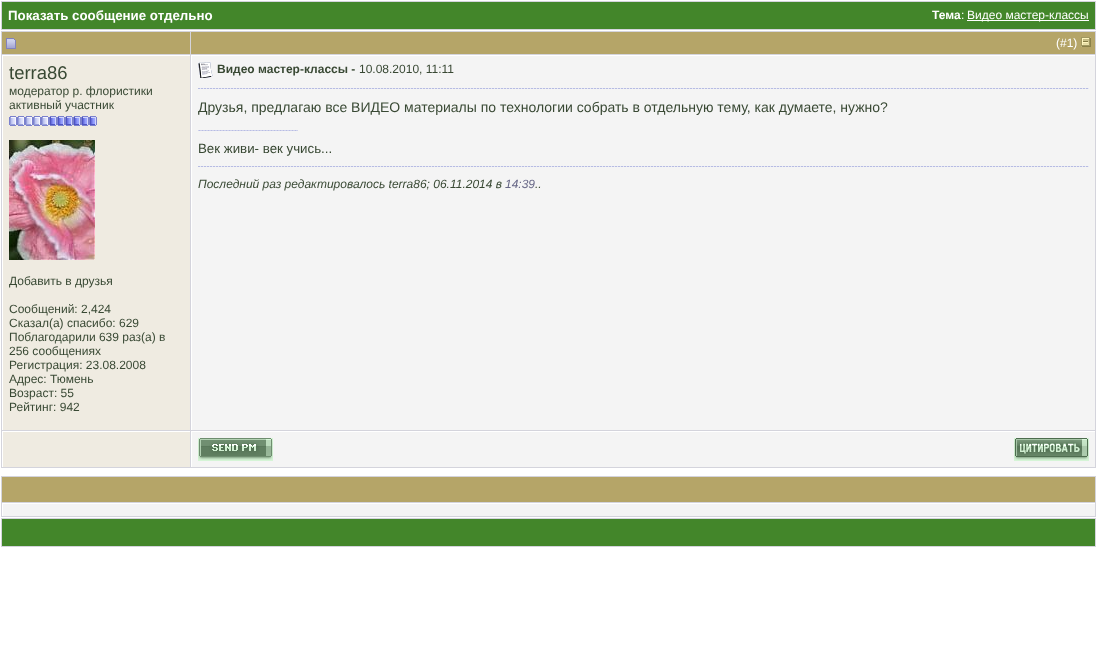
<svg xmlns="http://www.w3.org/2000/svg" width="1097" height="652">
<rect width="100%" height="100%" fill="#fff"/>
<rect x="1" y="1" width="1095" height="29" fill="#d4d4dc"/>
<rect x="2" y="2" width="1093" height="27" fill="#43862a"/>
<text x="8" y="20" style="font-family:Liberation Sans;font-size:13.3px;font-weight:bold;fill:#fff">Показать сообщение отдельно</text>
<text x="932" y="19" style="font-family:Liberation Sans;font-size:12px;font-weight:bold;fill:#fff">Тема</text>
<text x="961" y="19" style="font-family:Liberation Sans;font-size:12px;fill:#fff">:</text>
<rect x="967" y="20" width="122" height="1" fill="#fff"/>
<text x="967" y="19" style="font-family:Liberation Sans;font-size:12px;fill:#fff">Видео мастер-классы</text>
<rect x="1" y="31" width="1095" height="437" fill="#d4d4dc"/>
<rect x="2" y="32" width="188" height="22" fill="#b5a568"/>
<image x="6" y="38" width="10" height="11" href="media/1.png"/>
<rect x="191" y="32" width="904" height="22" fill="#b5a568"/>
<text x="1056" y="47" style="font-family:Liberation Sans;font-size:12px;fill:#fff">(#1)</text>
<image x="1081" y="37" width="10" height="10" href="media/2.png"/>
<rect x="3" y="56" width="187" height="374" fill="#efebe1"/>
<rect x="2" y="55" width="188" height="1" fill="#fff"/>
<rect x="2" y="55" width="1" height="375" fill="#fff"/>
<text x="9" y="79" style="font-family:Liberation Sans;font-size:18.5px;fill:#394934">terra86</text>
<text x="9" y="95" style="font-family:Liberation Sans;font-size:12px;fill:#394934">модератор р. флористики</text>
<text x="9" y="109" style="font-family:Liberation Sans;font-size:12px;fill:#394934">активный участник</text>
<image x="9" y="116" width="8" height="10" href="media/3.png"/>
<image x="17" y="116" width="8" height="10" href="media/3.png"/>
<image x="25" y="116" width="8" height="10" href="media/3.png"/>
<image x="33" y="116" width="8" height="10" href="media/3.png"/>
<image x="41" y="116" width="8" height="10" href="media/3.png"/>
<image x="49" y="116" width="8" height="10" href="media/4.png"/>
<image x="57" y="116" width="8" height="10" href="media/4.png"/>
<image x="65" y="116" width="8" height="10" href="media/4.png"/>
<image x="73" y="116" width="8" height="10" href="media/4.png"/>
<image x="81" y="116" width="8" height="10" href="media/4.png"/>
<image x="89" y="116" width="8" height="10" href="media/4.png"/>
<image x="9" y="140" width="86" height="120" href="media/5.png"/>
<text x="9" y="285" style="font-family:Liberation Sans;font-size:12px;fill:#394934">Добавить в друзья</text>
<text x="9" y="313" style="font-family:Liberation Sans;font-size:12px;fill:#394934">Сообщений: 2,424</text>
<text x="9" y="327" style="font-family:Liberation Sans;font-size:12px;fill:#394934">Сказал(а) спасибо: 629</text>
<text x="9" y="341" style="font-family:Liberation Sans;font-size:12px;fill:#394934">Поблагодарили 639 раз(а) в</text>
<text x="9" y="355" style="font-family:Liberation Sans;font-size:12px;fill:#394934">256 сообщениях</text>
<text x="9" y="369" style="font-family:Liberation Sans;font-size:12px;fill:#394934">Регистрация: 23.08.2008</text>
<text x="9" y="383" style="font-family:Liberation Sans;font-size:12px;fill:#394934">Адрес: Тюмень</text>
<text x="9" y="397" style="font-family:Liberation Sans;font-size:12px;fill:#394934">Возраст: 55</text>
<text x="9" y="411" style="font-family:Liberation Sans;font-size:12px;fill:#394934">Рейтинг: 942</text>
<rect x="192" y="56" width="903" height="374" fill="#f4f4f4"/>
<rect x="191" y="55" width="904" height="1" fill="#fff"/>
<rect x="191" y="55" width="1" height="375" fill="#fff"/>
<image x="198" y="62" width="15" height="16" href="media/6.png"/>
<text x="217" y="73" style="font-family:Liberation Sans;font-size:12px;font-weight:bold;fill:#394934">Видео мастер-классы -</text>
<text x="359" y="73" style="font-family:Liberation Sans;font-size:12px;fill:#394934">10.08.2010, 11:11</text>
<image x="198" y="88" width="891" height="1" href="media/7.png"/>
<text x="198" y="112" style="font-family:Liberation Sans;font-size:14px;fill:#394934">Друзья, предлагаю все ВИДЕО материалы по технологии собрать в отдельную тему, как думаете, нужно?</text>
<image x="198" y="130" width="100" height="1" href="media/8.png"/>
<text x="198" y="153" style="font-family:Liberation Sans;font-size:13.3px;fill:#394934">Век живи- век учись...</text>
<image x="198" y="166" width="891" height="1" href="media/7.png"/>
<text x="198" y="188" style="font-family:Liberation Sans;font-size:12px;font-style:italic;fill:#394934">Последний раз редактировалось terra86; 06.11.2014 в</text>
<text x="505" y="188" style="font-family:Liberation Sans;font-size:12px;font-style:italic;fill:#666686">14:39</text>
<text x="535" y="188" style="font-family:Liberation Sans;font-size:12px;font-style:italic;fill:#394934">..</text>
<rect x="3" y="432" width="187" height="35" fill="#efebe1"/>
<rect x="2" y="431" width="188" height="1" fill="#fff"/>
<rect x="2" y="431" width="1" height="36" fill="#fff"/>
<rect x="192" y="432" width="903" height="35" fill="#f4f4f4"/>
<rect x="191" y="431" width="904" height="1" fill="#fff"/>
<rect x="191" y="431" width="1" height="36" fill="#fff"/>
<image x="198" y="438" width="75" height="23" href="media/9.png"/>
<image x="1014" y="438" width="75" height="23" href="media/10.png"/>
<rect x="1" y="476" width="1095" height="41" fill="#d4d4dc"/>
<rect x="2" y="477" width="1093" height="25" fill="#b5a568"/>
<rect x="3" y="504" width="1092" height="12" fill="#f4f4f4"/>
<rect x="2" y="503" width="1093" height="1" fill="#fff"/>
<rect x="2" y="503" width="1" height="13" fill="#fff"/>
<rect x="1" y="518" width="1095" height="29" fill="#d4d4dc"/>
<rect x="2" y="519" width="1093" height="27" fill="#43862a"/>
</svg>
